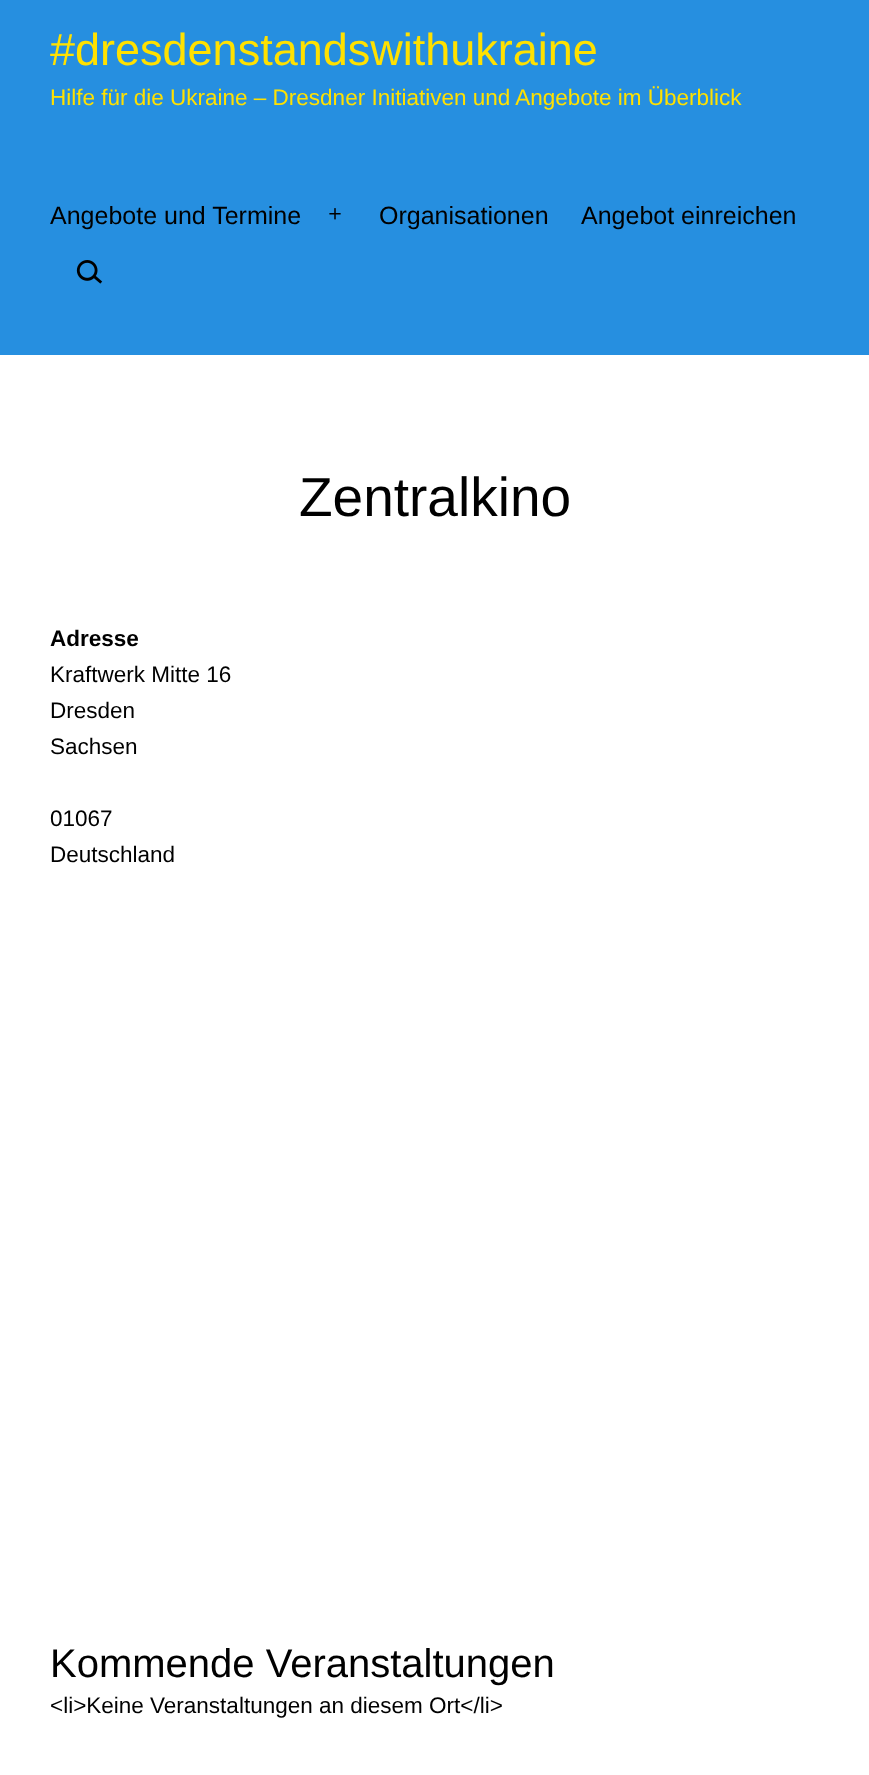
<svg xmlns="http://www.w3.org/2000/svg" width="869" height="1775">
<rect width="100%" height="100%" fill="#fff"/>
<rect width="869" height="355" fill="#268fe0"/>
<text x="50" y="65" style="font-family:Liberation Sans;font-size:45px;fill:#ffe100">#dresdenstandswithukraine</text>
<text x="50" y="105" style="font-family:Liberation Sans;font-size:22.5px;fill:#ffe100">Hilfe für die Ukraine – Dresdner Initiativen und Angebote im Überblick</text>
<text x="50" y="224" style="font-family:Liberation Sans;font-size:25px;fill:#000">Angebote und Termine</text>
<image x="329" y="208" width="12" height="12" href="media/1.png"/>
<text x="379" y="224" style="font-family:Liberation Sans;font-size:25px;fill:#000">Organisationen</text>
<text x="581" y="224" style="font-family:Liberation Sans;font-size:25px;fill:#000">Angebot einreichen</text>
<image x="76" y="260" width="27" height="24" href="media/2.png"/>
<text x="299" y="516" style="font-family:Liberation Sans;font-size:55px;fill:#000">Zentralkino</text>
<text x="50" y="646" style="font-family:Liberation Sans;font-size:22.5px;font-weight:bold;fill:#000">Adresse</text>
<text x="50" y="682" style="font-family:Liberation Sans;font-size:22.5px;fill:#000">Kraftwerk Mitte 16</text>
<text x="50" y="718" style="font-family:Liberation Sans;font-size:22.5px;fill:#000">Dresden</text>
<text x="50" y="754" style="font-family:Liberation Sans;font-size:22.5px;fill:#000">Sachsen</text>
<text x="50" y="826" style="font-family:Liberation Sans;font-size:22.5px;fill:#000">01067</text>
<text x="50" y="862" style="font-family:Liberation Sans;font-size:22.5px;fill:#000">Deutschland</text>
<text x="50" y="1677" style="font-family:Liberation Sans;font-size:40px;fill:#000">Kommende Veranstaltungen</text>
<text x="50" y="1713" style="font-family:Liberation Sans;font-size:22.5px;fill:#000">&lt;li&gt;Keine Veranstaltungen an diesem Ort&lt;/li&gt;</text>
</svg>
